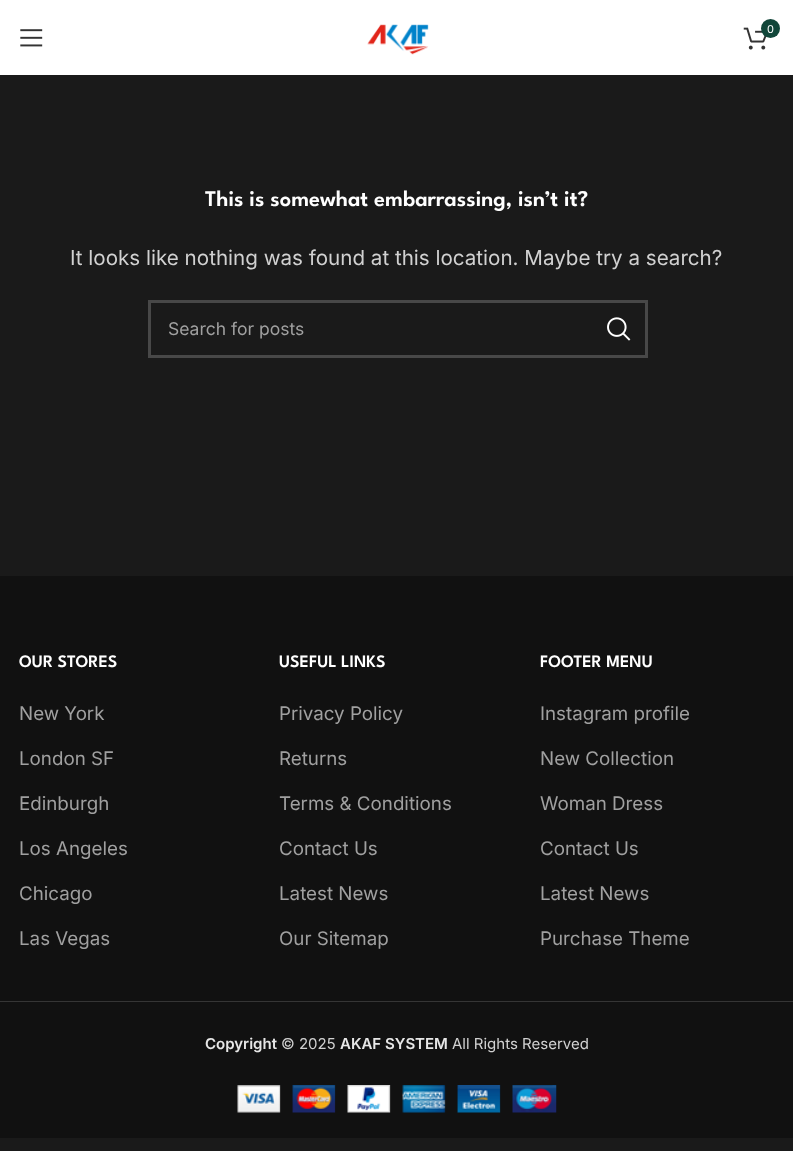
<svg xmlns="http://www.w3.org/2000/svg" width="793" height="1151">
<rect width="100%" height="100%" fill="#1a1a1a"/>
<rect width="793" height="75" fill="#fff"/>
<image x="20" y="29" width="23" height="18" href="media/1.png"/>
<image x="367" y="24" width="62" height="31" href="media/2.png"/>
<image x="743" y="27" width="24" height="23" href="media/3.png"/>
<circle cx="770.5" cy="28.5" r="9.5" fill="#114639"/>
<text x="767" y="33" style="font-family:Inter;font-size:11px;fill:#fff">0</text>
<text x="205" y="206" style="font-family:League Spartan;font-size:22.5px;font-weight:600;fill:#fff">This is somewhat embarrassing, isn’t it?</text>
<text x="70" y="265" style="font-family:Inter;font-size:20.6px;fill:#d1d1d1">It looks like nothing was found at this location. Maybe try a search?</text>
<rect x="149.5" y="301.5" width="497" height="55" fill="none" stroke="#484848" stroke-width="3"/>
<text x="168" y="335" style="font-family:Inter;font-size:17.5px;fill:#a0a0a0">Search for posts</text>
<image x="607" y="317" width="24" height="24" href="media/4.png"/>
<rect y="576" width="793" height="562" fill="#111"/>
<text x="19" y="667" style="font-family:League Spartan;font-size:17.5px;font-weight:600;fill:#fff">OUR STORES</text>
<text x="19" y="720" style="font-family:Inter;font-size:18.75px;fill:#a0a0a0">New York</text>
<text x="19" y="765" style="font-family:Inter;font-size:18.75px;fill:#a0a0a0">London SF</text>
<text x="19" y="810" style="font-family:Inter;font-size:18.75px;fill:#a0a0a0">Edinburgh</text>
<text x="19" y="855" style="font-family:Inter;font-size:18.75px;fill:#a0a0a0">Los Angeles</text>
<text x="19" y="900" style="font-family:Inter;font-size:18.75px;fill:#a0a0a0">Chicago</text>
<text x="19" y="945" style="font-family:Inter;font-size:18.75px;fill:#a0a0a0">Las Vegas</text>
<text x="279" y="667" style="font-family:League Spartan;font-size:17.5px;font-weight:600;fill:#fff">USEFUL LINKS</text>
<text x="279" y="720" style="font-family:Inter;font-size:18.75px;fill:#a0a0a0">Privacy Policy</text>
<text x="279" y="765" style="font-family:Inter;font-size:18.75px;fill:#a0a0a0">Returns</text>
<text x="279" y="810" style="font-family:Inter;font-size:18.75px;fill:#a0a0a0">Terms &amp; Conditions</text>
<text x="279" y="855" style="font-family:Inter;font-size:18.75px;fill:#a0a0a0">Contact Us</text>
<text x="279" y="900" style="font-family:Inter;font-size:18.75px;fill:#a0a0a0">Latest News</text>
<text x="279" y="945" style="font-family:Inter;font-size:18.75px;fill:#a0a0a0">Our Sitemap</text>
<text x="540" y="667" style="font-family:League Spartan;font-size:17.5px;font-weight:600;fill:#fff">FOOTER MENU</text>
<text x="540" y="720" style="font-family:Inter;font-size:18.75px;fill:#a0a0a0">Instagram profile</text>
<text x="540" y="765" style="font-family:Inter;font-size:18.75px;fill:#a0a0a0">New Collection</text>
<text x="540" y="810" style="font-family:Inter;font-size:18.75px;fill:#a0a0a0">Woman Dress</text>
<text x="540" y="855" style="font-family:Inter;font-size:18.75px;fill:#a0a0a0">Contact Us</text>
<text x="540" y="900" style="font-family:Inter;font-size:18.75px;fill:#a0a0a0">Latest News</text>
<text x="540" y="945" style="font-family:Inter;font-size:18.75px;fill:#a0a0a0">Purchase Theme</text>
<rect y="1001" width="793" height="1" fill="#353535"/>
<text x="205" y="1049" style="font-family:Inter;font-size:15px;font-weight:600;fill:#e7e7e7">Copyright</text>
<text x="281" y="1049" style="font-family:Inter;font-size:15px;fill:#d1d1d1">© 2025</text>
<text x="340" y="1049" style="font-family:Inter;font-size:15px;font-weight:600;fill:#e7e7e7">AKAF SYSTEM</text>
<text x="452" y="1049" style="font-family:Inter;font-size:15px;fill:#d1d1d1">All Rights Reserved</text>
<image x="237" y="1085" width="320" height="28" href="media/5.png"/>
</svg>
